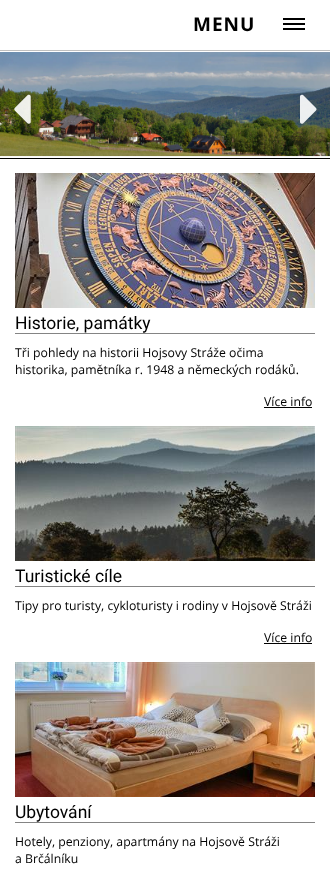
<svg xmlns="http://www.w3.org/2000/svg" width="330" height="883">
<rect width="100%" height="100%" fill="#fff"/>
<rect y="50" width="330" height="1" fill="#c0c0c0"/>
<text x="193" y="31" style="font-family:Open Sans;font-size:19px;font-weight:bold;letter-spacing:1px;fill:#000">MENU</text>
<rect x="283" y="18" width="22" height="2" fill="#000"/>
<rect x="283" y="23" width="22" height="2" fill="#000"/>
<rect x="283" y="28" width="22" height="2" fill="#000"/>
<rect y="158" width="330" height="1" fill="#000"/>
<image x="0" y="52" width="330" height="105" href="media/1.png"/>
<image x="14" y="94" width="17" height="30" href="media/2.png"/>
<image x="300" y="94" width="17" height="30" href="media/3.png"/>
<image x="15" y="173" width="300" height="135" href="media/4.png"/>
<rect x="15" y="333" width="300" height="1" fill="#848484"/>
<text x="15" y="329" style="font-family:Roboto;font-size:17.5px;fill:#000">Historie, památky</text>
<text x="15" y="357" style="font-family:Open Sans;font-size:12.25px;fill:#000">Tři pohledy na historii Hojsovy Stráže očima</text>
<text x="15" y="374" style="font-family:Open Sans;font-size:12.25px;fill:#000">historika, pamětníka r. 1948 a německých rodáků.</text>
<text x="264" y="406" style="font-family:Open Sans;font-size:12.25px;fill:#000">Více info</text>
<rect x="264" y="407" width="48" height="1" fill="#000"/>
<image x="15" y="426" width="300" height="135" href="media/5.png"/>
<rect x="15" y="586" width="300" height="1" fill="#848484"/>
<text x="15" y="582" style="font-family:Roboto;font-size:17.5px;fill:#000">Turistické cíle</text>
<text x="15" y="610" style="font-family:Open Sans;font-size:12.25px;fill:#000">Tipy pro turisty, cykloturisty i rodiny v Hojsově Stráži</text>
<text x="264" y="642" style="font-family:Open Sans;font-size:12.25px;fill:#000">Více info</text>
<rect x="264" y="643" width="48" height="1" fill="#000"/>
<image x="15" y="662" width="300" height="135" href="media/6.png"/>
<rect x="15" y="822" width="300" height="1" fill="#848484"/>
<text x="15" y="818" style="font-family:Roboto;font-size:17.5px;fill:#000">Ubytování</text>
<text x="15" y="846" style="font-family:Open Sans;font-size:12.25px;fill:#000">Hotely, penziony, apartmány na Hojsově Stráži</text>
<text x="15" y="863" style="font-family:Open Sans;font-size:12.25px;fill:#000">a Brčálníku</text>
</svg>
